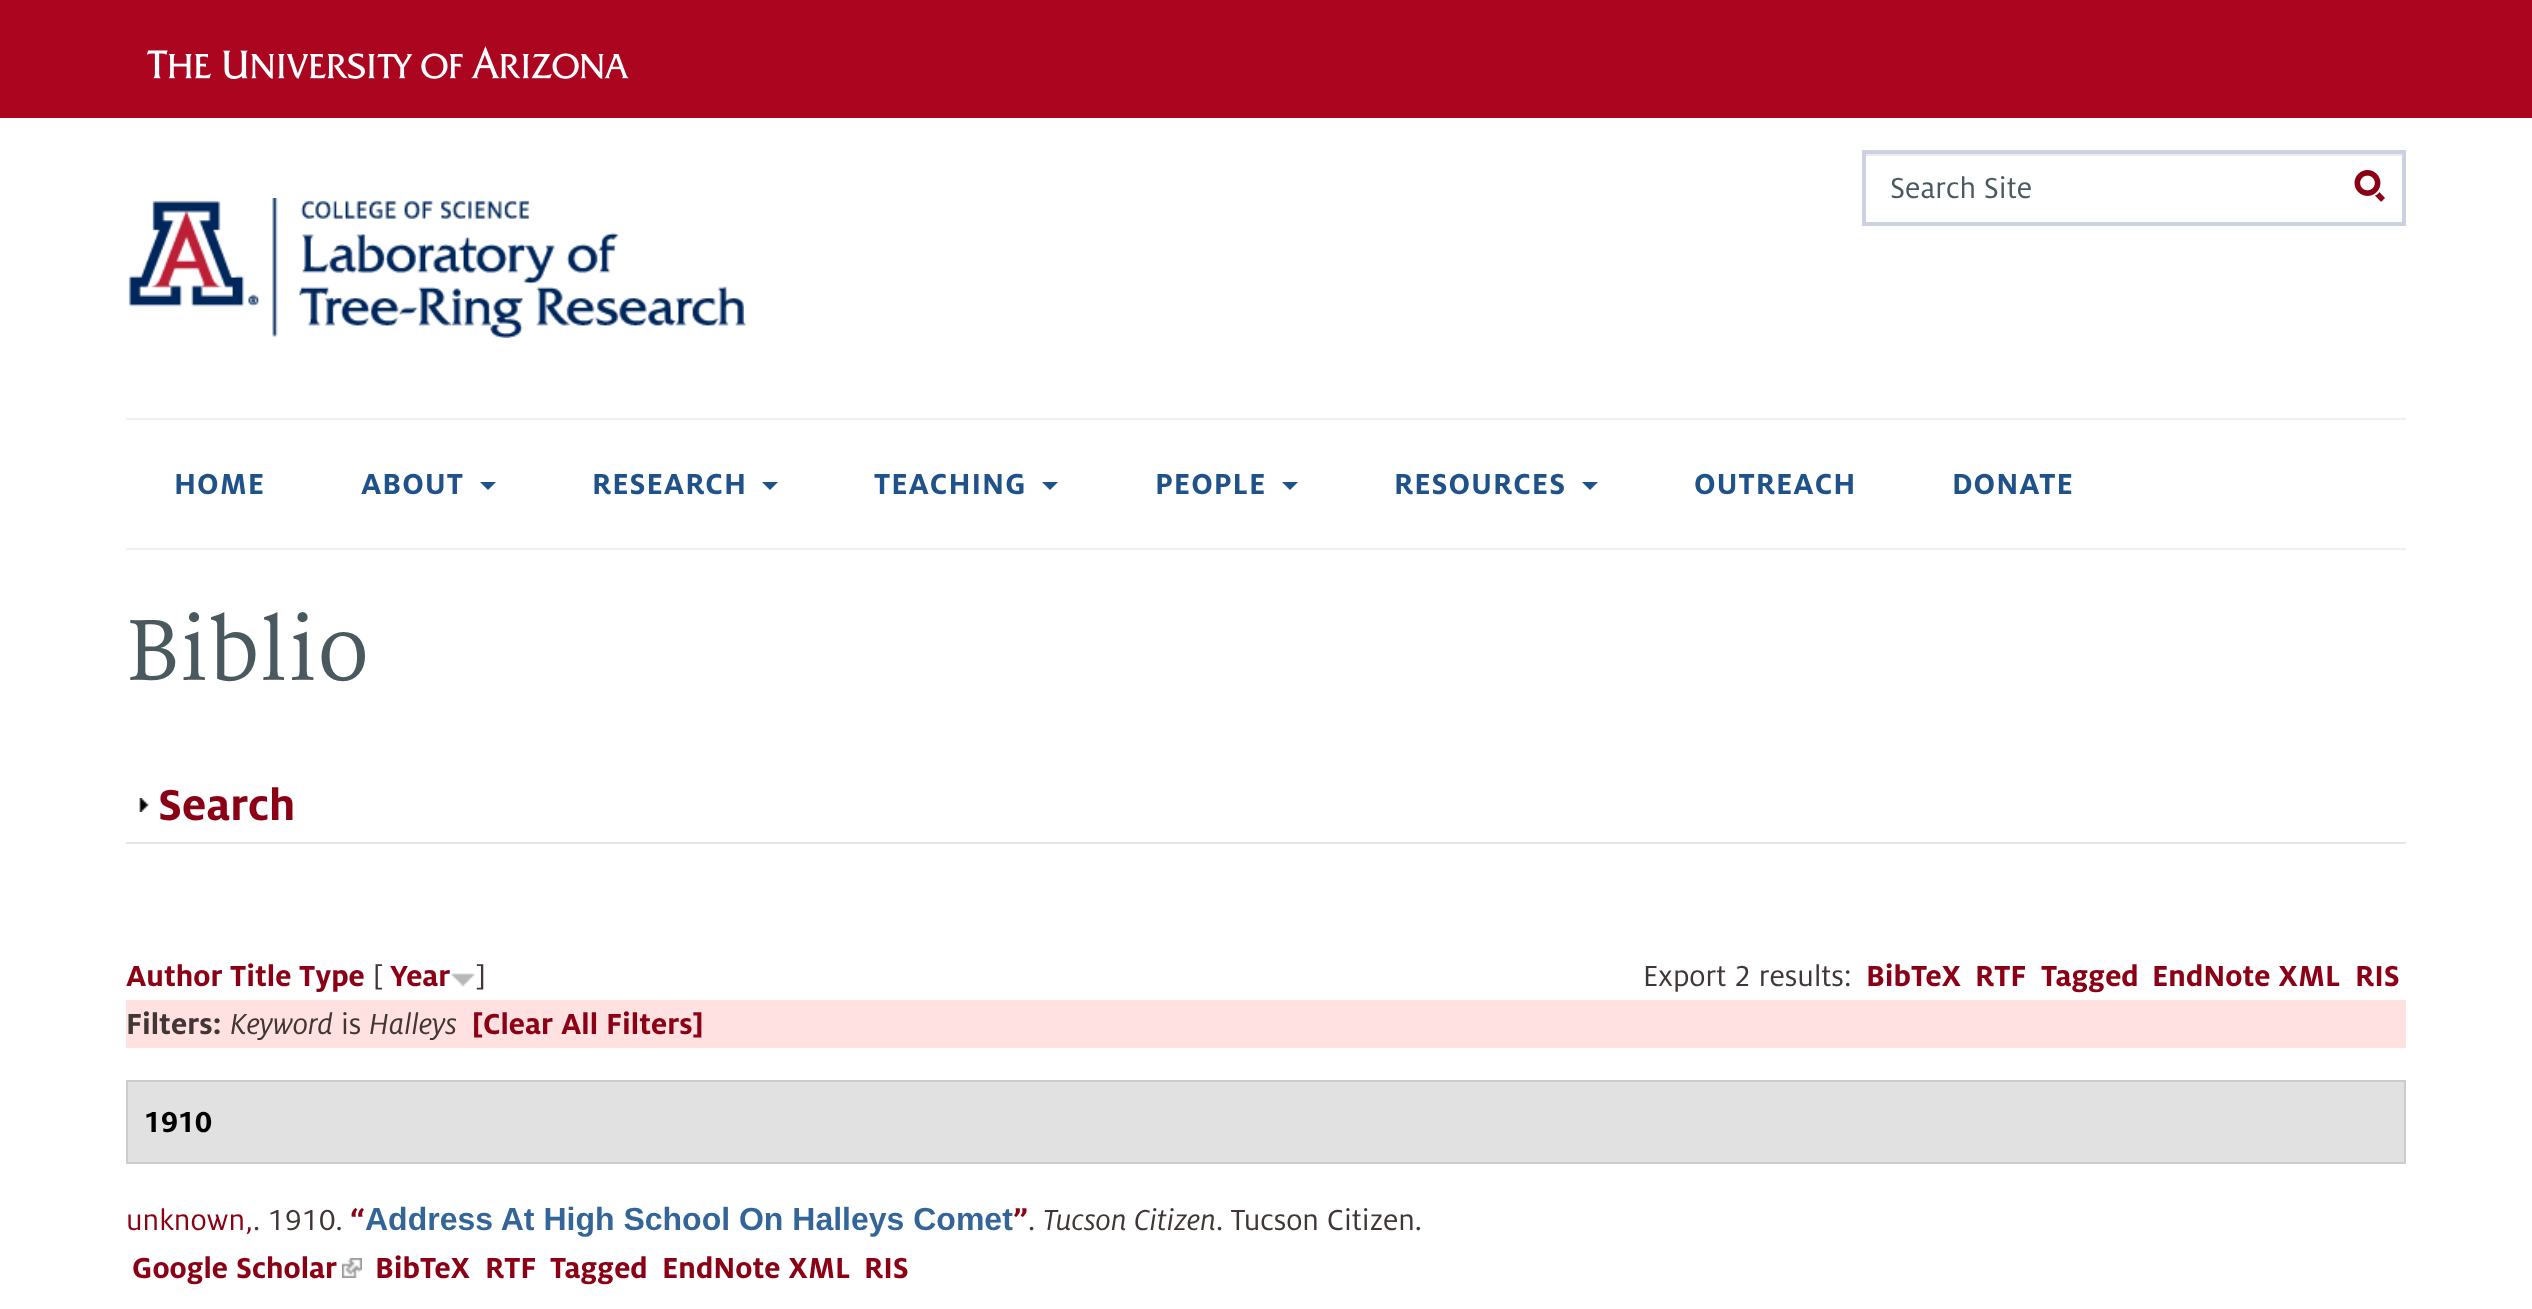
<svg xmlns="http://www.w3.org/2000/svg" width="2532" height="1309">
<rect width="100%" height="100%" fill="#fff"/>
<rect width="2532" height="118" fill="#ab0520"/>
<image x="146" y="46" width="483" height="33" href="media/1.png"/>
<rect x="1866" y="154" width="536" height="2" fill="#ececec"/>
<rect x="1864" y="152" width="540" height="72" fill="none" stroke="#cbd1e0" stroke-width="4"/>
<text x="1890" y="198" style="font-family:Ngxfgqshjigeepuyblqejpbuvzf;font-size:32px;fill:#49595e">Search Site</text>
<image x="2354" y="170" width="31" height="32" href="media/2.png"/>
<image x="128" y="198" width="618" height="140" href="media/3.png"/>
<rect x="126" y="418" width="2280" height="2" fill="#eef1f1"/>
<rect x="126" y="548" width="2280" height="2" fill="#eef1f1"/>
<text x="174" y="494" style="font-family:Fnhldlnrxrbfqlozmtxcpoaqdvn;font-size:32px;font-weight:bold;letter-spacing:1px;fill:#1e5288">HOME</text>
<text x="361" y="494" style="font-family:Fnhldlnrxrbfqlozmtxcpoaqdvn;font-size:32px;font-weight:bold;letter-spacing:1px;fill:#1e5288">ABOUT</text>
<path d="M480 482h16l-8 8z" fill="#1e5288"/>
<text x="592" y="494" style="font-family:Fnhldlnrxrbfqlozmtxcpoaqdvn;font-size:32px;font-weight:bold;letter-spacing:1px;fill:#1e5288">RESEARCH</text>
<path d="M762 482h16l-8 8z" fill="#1e5288"/>
<text x="874" y="494" style="font-family:Fnhldlnrxrbfqlozmtxcpoaqdvn;font-size:32px;font-weight:bold;letter-spacing:1px;fill:#1e5288">TEACHING</text>
<path d="M1042 482h16l-8 8z" fill="#1e5288"/>
<text x="1155" y="494" style="font-family:Fnhldlnrxrbfqlozmtxcpoaqdvn;font-size:32px;font-weight:bold;letter-spacing:1px;fill:#1e5288">PEOPLE</text>
<path d="M1282 482h16l-8 8z" fill="#1e5288"/>
<text x="1394" y="494" style="font-family:Fnhldlnrxrbfqlozmtxcpoaqdvn;font-size:32px;font-weight:bold;letter-spacing:1px;fill:#1e5288">RESOURCES</text>
<path d="M1582 482h16l-8 8z" fill="#1e5288"/>
<text x="1694" y="494" style="font-family:Fnhldlnrxrbfqlozmtxcpoaqdvn;font-size:32px;font-weight:bold;letter-spacing:1px;fill:#1e5288">OUTREACH</text>
<text x="1952" y="494" style="font-family:Fnhldlnrxrbfqlozmtxcpoaqdvn;font-size:32px;font-weight:bold;letter-spacing:1px;fill:#1e5288">DONATE</text>
<text x="126" y="680" style="font-family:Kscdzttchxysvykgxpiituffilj;font-size:96px;fill:#49595e">Biblio</text>
<rect x="126" y="842" width="2280" height="2" fill="#e5e5e5"/>
<image x="139" y="798" width="10" height="14" href="media/4.png"/>
<text x="158" y="820" style="font-family:Fnhldlnrxrbfqlozmtxcpoaqdvn;font-size:48px;font-weight:bold;fill:#8b0015">Search</text>
<text x="126" y="986" style="font-family:Fnhldlnrxrbfqlozmtxcpoaqdvn;font-size:32px;font-weight:bold;fill:#8b0015">Author</text>
<text x="230" y="986" style="font-family:Fnhldlnrxrbfqlozmtxcpoaqdvn;font-size:32px;font-weight:bold;fill:#8b0015">Title</text>
<text x="299" y="986" style="font-family:Fnhldlnrxrbfqlozmtxcpoaqdvn;font-size:32px;font-weight:bold;fill:#8b0015">Type</text>
<text x="373" y="986" style="font-family:Ngxfgqshjigeepuyblqejpbuvzf;font-size:32px;fill:#403635">[</text>
<text x="390" y="986" style="font-family:Fnhldlnrxrbfqlozmtxcpoaqdvn;font-size:32px;font-weight:bold;fill:#8b0015">Year</text>
<image x="451" y="973" width="24" height="14" href="media/5.png"/>
<text x="476" y="986" style="font-family:Ngxfgqshjigeepuyblqejpbuvzf;font-size:32px;fill:#403635">]</text>
<text x="1643" y="986" style="font-family:Ngxfgqshjigeepuyblqejpbuvzf;font-size:32px;fill:#403635">Export 2 results:</text>
<text x="1866" y="986" style="font-family:Fnhldlnrxrbfqlozmtxcpoaqdvn;font-size:32px;font-weight:bold;fill:#8b0015">BibTeX</text>
<text x="1975" y="986" style="font-family:Fnhldlnrxrbfqlozmtxcpoaqdvn;font-size:32px;font-weight:bold;fill:#8b0015">RTF</text>
<text x="2041" y="986" style="font-family:Fnhldlnrxrbfqlozmtxcpoaqdvn;font-size:32px;font-weight:bold;fill:#8b0015">Tagged</text>
<text x="2152" y="986" style="font-family:Fnhldlnrxrbfqlozmtxcpoaqdvn;font-size:32px;font-weight:bold;fill:#8b0015">EndNote XML</text>
<text x="2355" y="986" style="font-family:Fnhldlnrxrbfqlozmtxcpoaqdvn;font-size:32px;font-weight:bold;fill:#8b0015">RIS</text>
<rect x="126" y="1000" width="2280" height="48" fill="#ffe1e1"/>
<text x="126" y="1034" style="font-family:Fnhldlnrxrbfqlozmtxcpoaqdvn;font-size:32px;font-weight:bold;fill:#403635">Filters:</text>
<text x="230" y="1034" style="font-family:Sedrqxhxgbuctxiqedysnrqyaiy;font-size:32px;font-style:italic;fill:#403635">Keyword</text>
<text x="341" y="1034" style="font-family:Ngxfgqshjigeepuyblqejpbuvzf;font-size:32px;fill:#403635">is</text>
<text x="369" y="1034" style="font-family:Sedrqxhxgbuctxiqedysnrqyaiy;font-size:32px;font-style:italic;fill:#403635">Halleys</text>
<text x="472" y="1034" style="font-family:Fnhldlnrxrbfqlozmtxcpoaqdvn;font-size:32px;font-weight:bold;fill:#8b0015">[Clear All Filters]</text>
<rect x="127" y="1081" width="2278" height="82" fill="#e1e1e1" stroke="#ccc" stroke-width="2"/>
<text x="144" y="1132" style="font-family:Fnhldlnrxrbfqlozmtxcpoaqdvn;font-size:32px;font-weight:bold;fill:#000">1910</text>
<text x="126" y="1230" style="font-family:Ngxfgqshjigeepuyblqejpbuvzf;font-size:32px;fill:#8b0015">unknown,</text>
<text x="253" y="1230" style="font-family:Ngxfgqshjigeepuyblqejpbuvzf;font-size:32px;fill:#403635">. 1910.</text>
<text x="350" y="1230" style="font-family:Fnhldlnrxrbfqlozmtxcpoaqdvn;font-size:32px;font-weight:bold;fill:#8b0015">“</text>
<text x="365" y="1230" style="font-family:Liberation Sans;font-size:32px;font-weight:bold;fill:#336599">Address At High School On Halleys Comet</text>
<text x="1013" y="1230" style="font-family:Fnhldlnrxrbfqlozmtxcpoaqdvn;font-size:32px;font-weight:bold;fill:#8b0015">”</text>
<text x="1028" y="1230" style="font-family:Ngxfgqshjigeepuyblqejpbuvzf;font-size:32px;fill:#403635">.</text>
<text x="1043" y="1230" style="font-family:Sedrqxhxgbuctxiqedysnrqyaiy;font-size:32px;font-style:italic;fill:#403635">Tucson Citizen</text>
<text x="1216" y="1230" style="font-family:Ngxfgqshjigeepuyblqejpbuvzf;font-size:32px;fill:#403635">. Tucson Citizen.</text>
<text x="132" y="1278" style="font-family:Fnhldlnrxrbfqlozmtxcpoaqdvn;font-size:32px;font-weight:bold;fill:#8b0015">Google Scholar</text>
<image x="342" y="1258" width="20" height="20" href="media/6.png"/>
<text x="375" y="1278" style="font-family:Fnhldlnrxrbfqlozmtxcpoaqdvn;font-size:32px;font-weight:bold;fill:#8b0015">BibTeX</text>
<text x="485" y="1278" style="font-family:Fnhldlnrxrbfqlozmtxcpoaqdvn;font-size:32px;font-weight:bold;fill:#8b0015">RTF</text>
<text x="550" y="1278" style="font-family:Fnhldlnrxrbfqlozmtxcpoaqdvn;font-size:32px;font-weight:bold;fill:#8b0015">Tagged</text>
<text x="662" y="1278" style="font-family:Fnhldlnrxrbfqlozmtxcpoaqdvn;font-size:32px;font-weight:bold;fill:#8b0015">EndNote XML</text>
<text x="864" y="1278" style="font-family:Fnhldlnrxrbfqlozmtxcpoaqdvn;font-size:32px;font-weight:bold;fill:#8b0015">RIS</text>
</svg>
